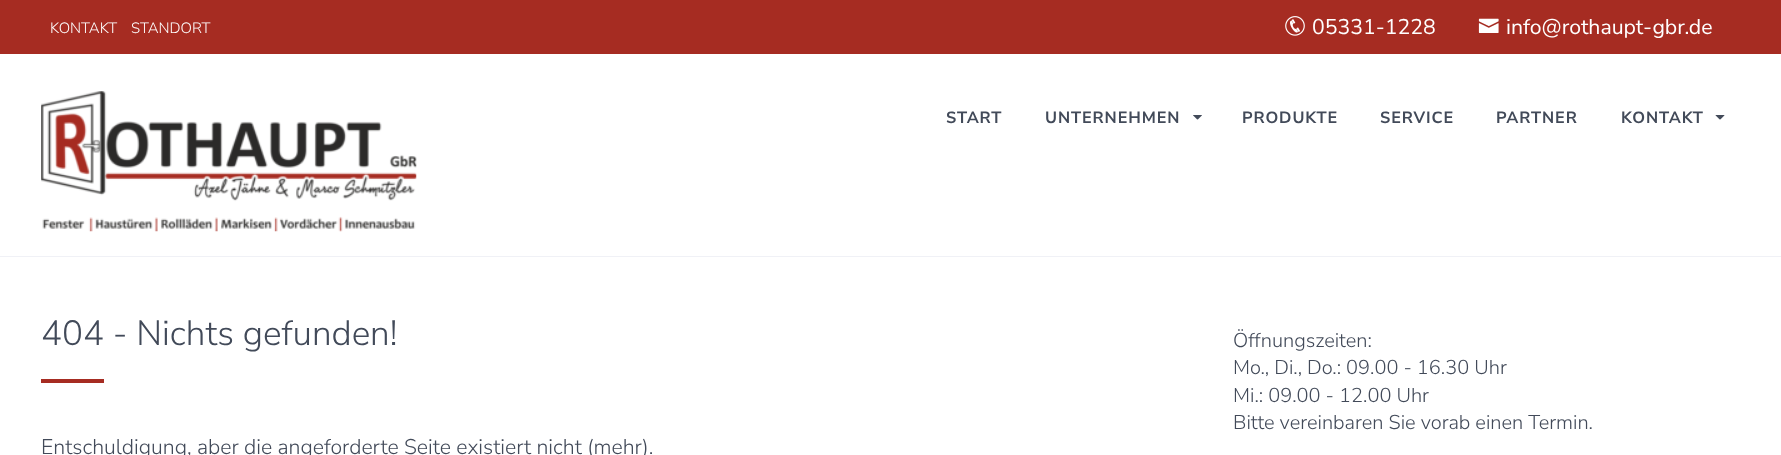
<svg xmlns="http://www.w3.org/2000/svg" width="1781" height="455">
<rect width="100%" height="100%" fill="#fff"/>
<rect y="256" width="1781" height="1" fill="#f0f1f6"/>
<rect width="1781" height="54" fill="#a62c22"/>
<text x="50" y="33" style="font-family:Nunito Sans;font-size:15px;font-weight:300;fill:#fff">KONTAKT</text>
<text x="131" y="33" style="font-family:Nunito Sans;font-size:15px;font-weight:300;fill:#fff">STANDORT</text>
<image x="1285" y="16" width="20" height="20" href="media/1.png"/>
<text x="1312" y="34" style="font-family:Nunito Sans;font-size:21.25px;fill:#fff">05331-1228</text>
<image x="1478" y="18" width="21" height="15" href="media/2.png"/>
<text x="1506" y="34" style="font-family:Nunito Sans;font-size:21.25px;fill:#fff">info@rothaupt-gbr.de</text>
<image x="41" y="91" width="376" height="141" href="media/3.png"/>
<text x="946" y="123" style="font-family:Nunito Sans;font-size:16.25px;font-weight:bold;letter-spacing:0.9px;fill:#424a59">START</text>
<text x="1045" y="123" style="font-family:Nunito Sans;font-size:16.25px;font-weight:bold;letter-spacing:0.9px;fill:#424a59">UNTERNEHMEN</text>
<image x="1193" y="115" width="9" height="5" href="media/4.png"/>
<text x="1242" y="123" style="font-family:Nunito Sans;font-size:16.25px;font-weight:bold;letter-spacing:0.9px;fill:#424a59">PRODUKTE</text>
<text x="1380" y="123" style="font-family:Nunito Sans;font-size:16.25px;font-weight:bold;letter-spacing:0.9px;fill:#424a59">SERVICE</text>
<text x="1496" y="123" style="font-family:Nunito Sans;font-size:16.25px;font-weight:bold;letter-spacing:0.9px;fill:#424a59">PARTNER</text>
<text x="1621" y="123" style="font-family:Nunito Sans;font-size:16.25px;font-weight:bold;letter-spacing:0.9px;fill:#424a59">KONTAKT</text>
<image x="1715" y="115" width="10" height="5" href="media/5.png"/>
<text x="41" y="345" style="font-family:Nunito Sans;font-size:35px;font-weight:300;fill:#424a59">404 - Nichts gefunden!</text>
<rect x="41" y="379" width="63" height="4" fill="#a62c22"/>
<text x="41" y="454" style="font-family:Nunito Sans;font-size:21.25px;font-weight:300;fill:#424a59">Entschuldigung, aber die angeforderte Seite existiert nicht (mehr).</text>
<text x="1233" y="347" style="font-family:Nunito Sans;font-size:20px;font-weight:300;fill:#424a59">Öffnungszeiten:</text>
<text x="1233" y="374" style="font-family:Nunito Sans;font-size:20px;font-weight:300;fill:#424a59">Mo., Di., Do.: 09.00 - 16.30 Uhr</text>
<text x="1233" y="402" style="font-family:Nunito Sans;font-size:20px;font-weight:300;fill:#424a59">Mi.: 09.00 - 12.00 Uhr</text>
<text x="1233" y="429" style="font-family:Nunito Sans;font-size:20px;font-weight:300;fill:#424a59">Bitte vereinbaren Sie vorab einen Termin.</text>
</svg>
